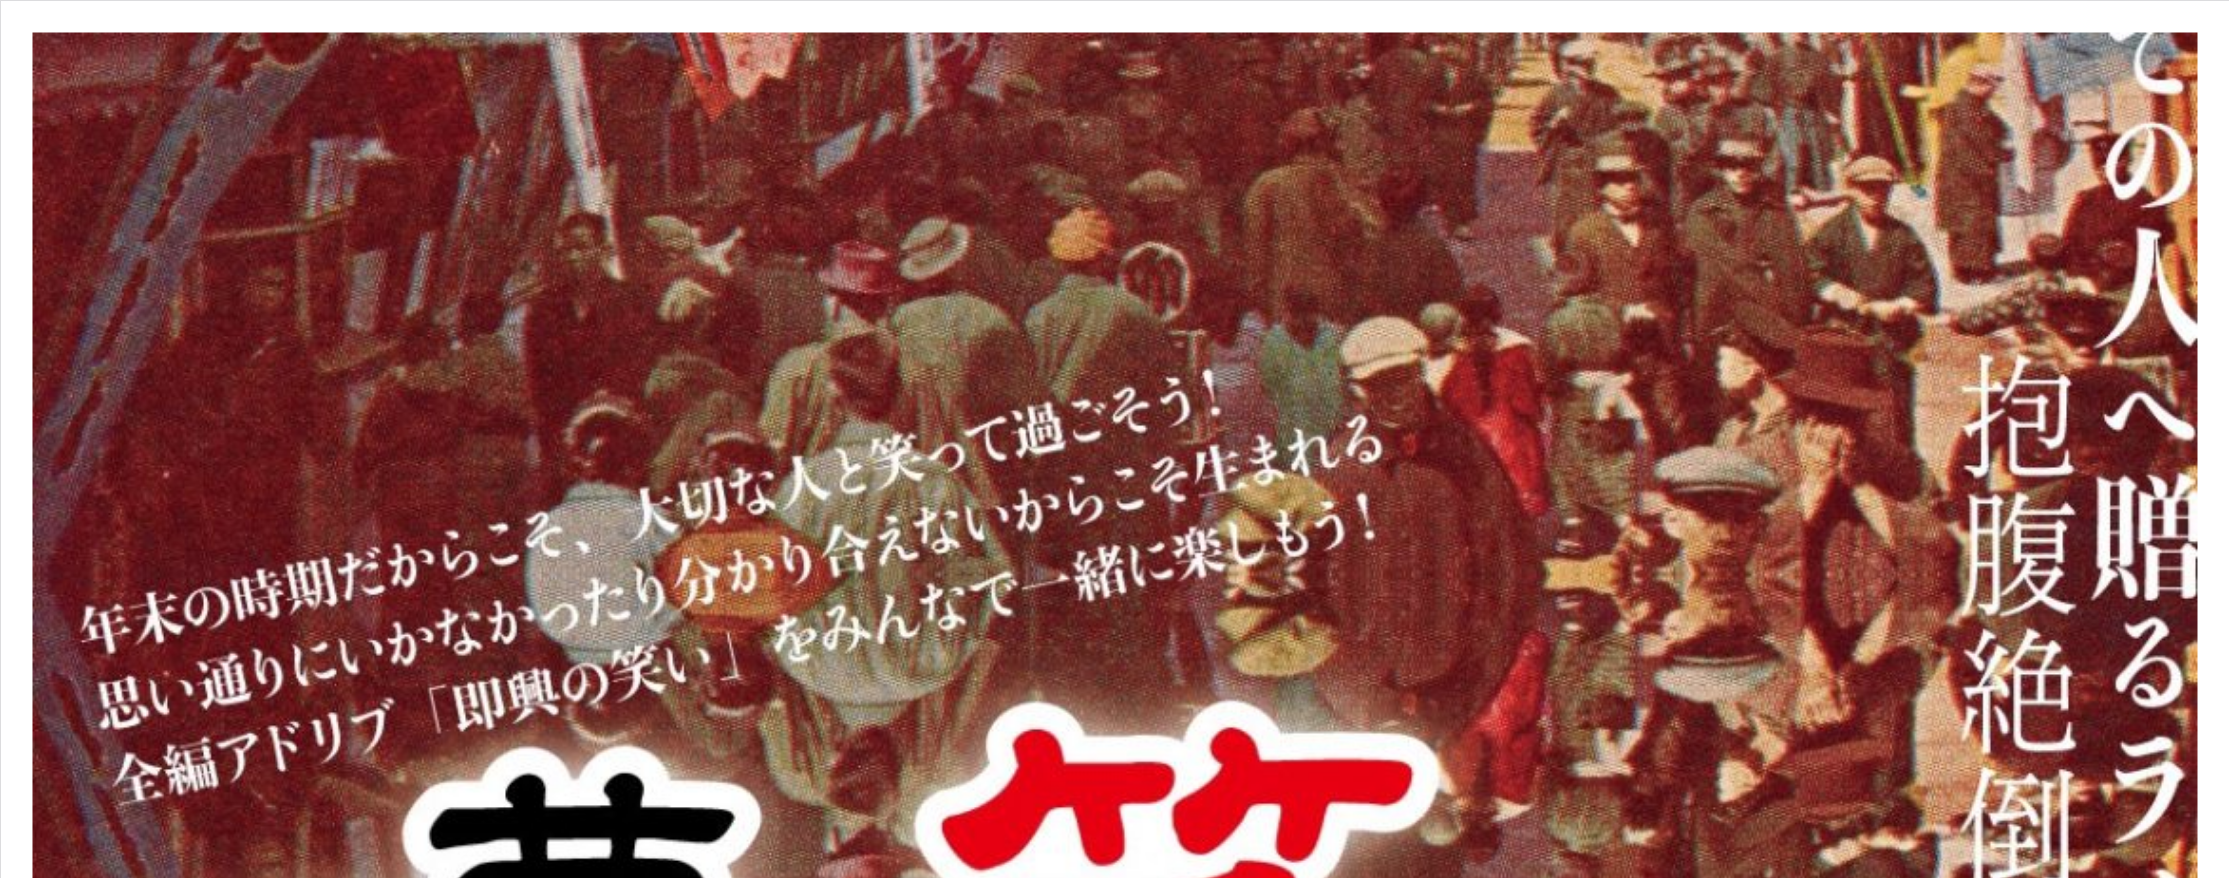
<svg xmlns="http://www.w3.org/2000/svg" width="2229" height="878">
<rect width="100%" height="100%" fill="#fff"/>
<rect x="0.5" y="0.5" width="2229" height="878" fill="none" stroke="#dcdcde"/>
<image x="32" y="32" width="2166" height="846" href="media/1.png"/>
</svg>
